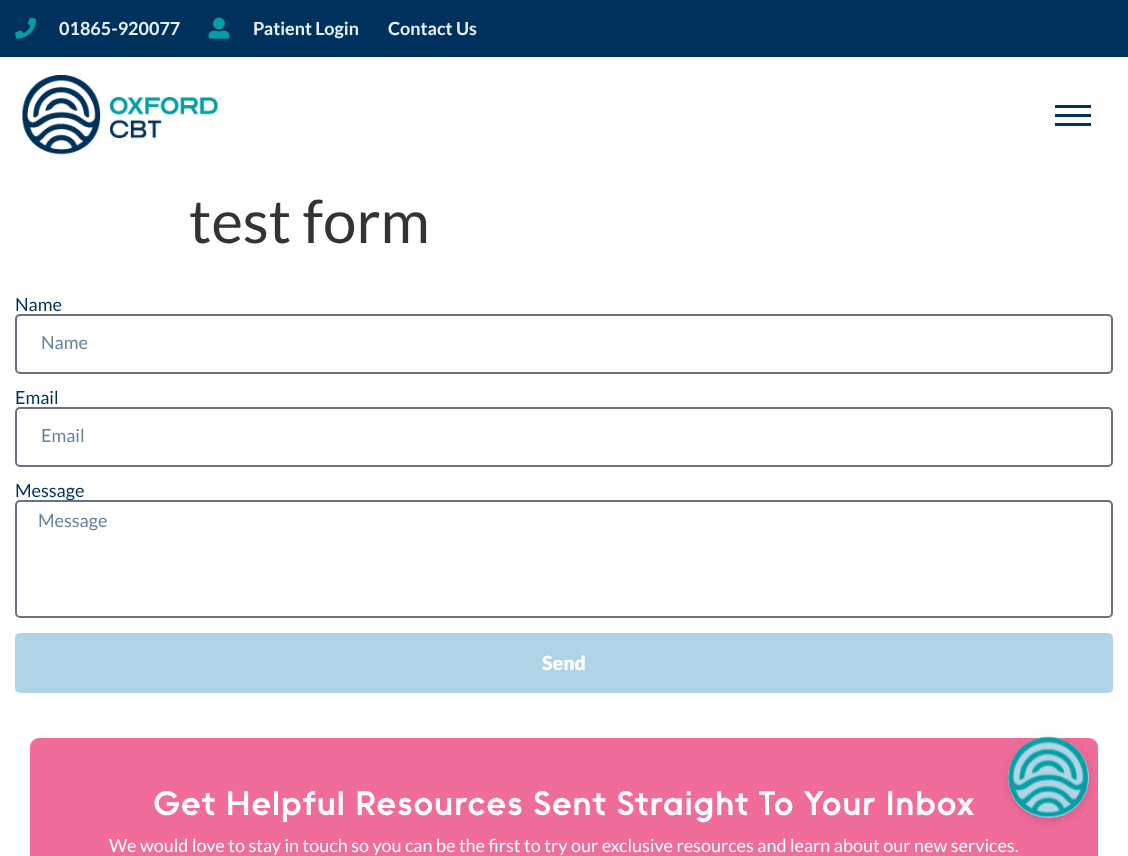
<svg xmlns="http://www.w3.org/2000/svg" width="1128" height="856">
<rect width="100%" height="100%" fill="#fff"/>
<rect width="1128" height="57" fill="#00315c"/>
<image x="15" y="17" width="21" height="22" href="media/1.png"/>
<text x="59" y="35" style="font-family:Lato;font-size:18px;font-weight:bold;fill:#e7f2f7">01865-920077</text>
<image x="208" y="17" width="22" height="22" href="media/2.png"/>
<text x="253" y="35" style="font-family:Lato;font-size:18px;font-weight:bold;fill:#e7f2f7">Patient Login</text>
<text x="388" y="35" style="font-family:Lato;font-size:18px;font-weight:bold;fill:#e7f2f7">Contact Us</text>
<image x="22" y="75" width="196" height="80" href="media/3.png"/>
<rect x="1055" y="114" width="36" height="3" fill="#00315c"/>
<rect x="1055" y="105" width="36" height="3" fill="#00315c"/>
<rect x="1055" y="123" width="36" height="3" fill="#00315c"/>
<text x="189" y="243" style="font-family:Lato;font-size:60px;fill:#333">test form</text>
<text x="15" y="311" style="font-family:Lato;font-size:18px;fill:#00315c">Name</text>
<rect x="16" y="315" width="1096" height="58" rx="4" fill="none" stroke="#69727d" stroke-width="2"/>
<text x="41" y="349" style="font-family:Lato;font-size:18px;fill:#66839d">Name</text>
<text x="15" y="404" style="font-family:Lato;font-size:18px;fill:#00315c">Email</text>
<rect x="16" y="408" width="1096" height="58" rx="4" fill="none" stroke="#69727d" stroke-width="2"/>
<text x="41" y="442" style="font-family:Lato;font-size:18px;fill:#66839d">Email</text>
<text x="15" y="497" style="font-family:Lato;font-size:18px;fill:#00315c">Message</text>
<rect x="16" y="501" width="1096" height="116" rx="4" fill="#fff" stroke="#69727d" stroke-width="2"/>
<text x="38" y="527" style="font-family:Lato;font-size:18px;fill:#66839d">Message</text>
<rect x="15" y="633" width="1098" height="60" rx="5" fill="#aed4e5"/>
<text x="542" y="670" style="font-family:Lato;font-size:19.5px;font-weight:900;fill:#fff">Send</text>
<rect x="30" y="738" width="1068" height="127" rx="9" fill="#f06c9b"/>
<text x="153" y="815" style="font-family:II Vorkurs;font-size:34.5px;font-weight:bold;fill:#fff">Get Helpful Resources Sent Straight To Your Inbox</text>
<text x="109" y="852" style="font-family:Lato;font-size:18px;fill:#fff">We would love to stay in touch so you can be the first to try our exclusive resources and learn about our new services.</text>
<rect x="1008" y="740" width="81" height="81" rx="40.5" fill="#00000014" filter="blur(3px)"/>
<rect x="1008" y="740" width="81" height="81" rx="40.5" fill="#0000000f" filter="blur(9px)"/>
<circle cx="1048.5" cy="777.5" r="40.5" fill="#aed4e5"/>
<image x="1008" y="736" width="80" height="82" href="media/4.png"/>
</svg>
